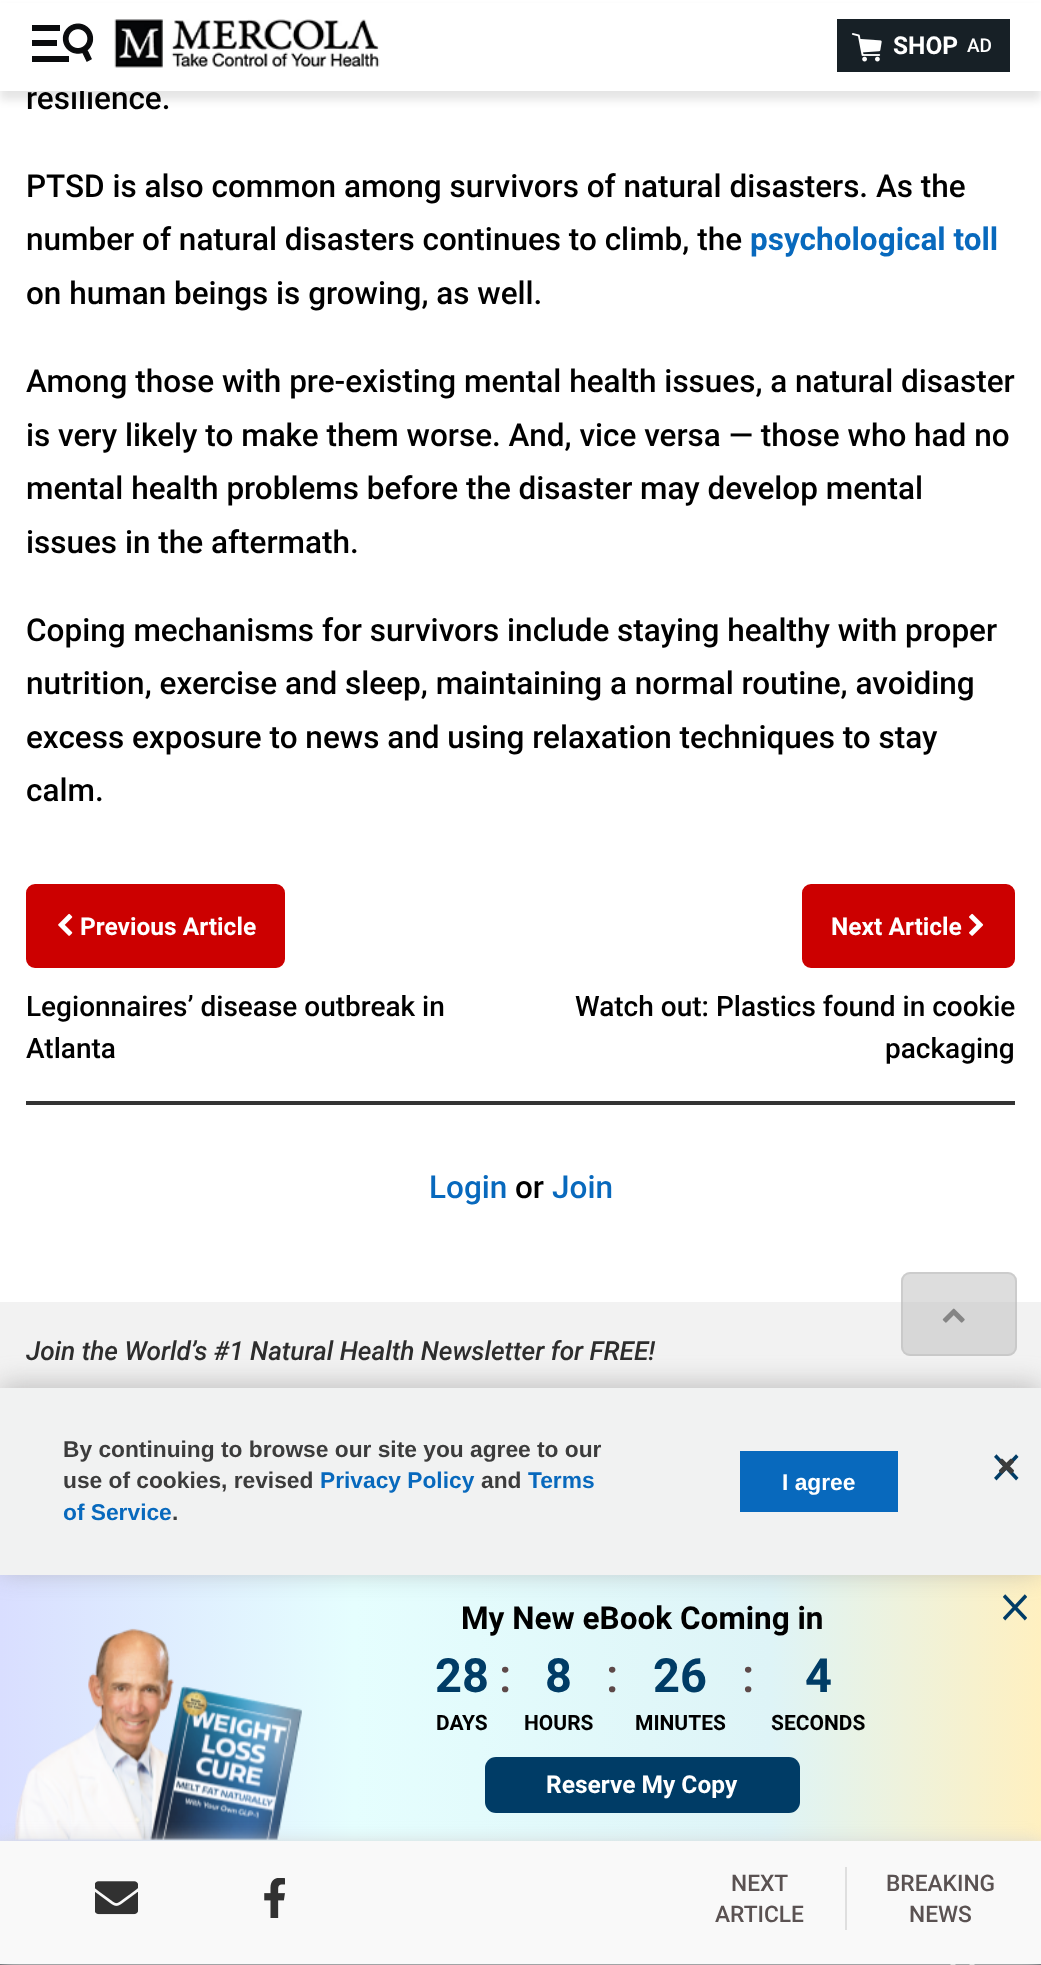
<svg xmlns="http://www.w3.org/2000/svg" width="1041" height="1965">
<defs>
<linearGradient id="g1" gradientUnits="userSpaceOnUse" x1="0" y1="1708" x2="1041" y2="1708"><stop offset="0" stop-color="#d9deff"/><stop offset="0.34" stop-color="#e5fefe"/><stop offset="0.74" stop-color="#def4f7"/><stop offset="1" stop-color="#fff0c0"/></linearGradient>
</defs>
<rect width="100%" height="100%" fill="#fff"/>
<rect y="9" width="1041" height="91" fill="#0000001a" filter="blur(4.5px)"/>
<text x="26" y="109" style="font-family:Roboto;font-size:31.5px;font-weight:500;fill:#000">resilience.</text>
<rect y="3" width="1041" height="88" fill="#fff"/>
<image x="32" y="23" width="62" height="39" href="media/1.png"/>
<image x="114" y="19" width="266" height="49" href="media/2.png"/>
<rect x="837" y="19" width="173" height="53" fill="#172026"/>
<image x="851" y="33" width="31" height="29" href="media/3.png"/>
<text x="893" y="54" style="font-family:Roboto;font-size:24.5px;font-weight:bold;fill:#fff">SHOP</text>
<text x="967" y="52" style="font-family:Roboto;font-size:19px;font-weight:500;fill:#fff">AD</text>
<text x="26" y="197" style="font-family:Roboto;font-size:31.5px;font-weight:500;fill:#000">PTSD is also common among survivors of natural disasters. As the</text>
<text x="26" y="250" style="font-family:Roboto;font-size:31.5px;font-weight:500;fill:#000">number of natural disasters continues to climb, the</text>
<text x="750" y="250" style="font-family:Roboto;font-size:31.5px;font-weight:bold;fill:#0869bd">psychological toll</text>
<text x="26" y="304" style="font-family:Roboto;font-size:31.5px;font-weight:500;fill:#000">on human beings is growing, as well.</text>
<text x="26" y="392" style="font-family:Roboto;font-size:31.5px;font-weight:500;fill:#000">Among those with pre-existing mental health issues, a natural disaster</text>
<text x="26" y="446" style="font-family:Roboto;font-size:31.5px;font-weight:500;fill:#000">is very likely to make them worse. And, vice versa — those who had no</text>
<text x="26" y="499" style="font-family:Roboto;font-size:31.5px;font-weight:500;fill:#000">mental health problems before the disaster may develop mental</text>
<text x="26" y="553" style="font-family:Roboto;font-size:31.5px;font-weight:500;fill:#000">issues in the aftermath.</text>
<text x="26" y="641" style="font-family:Roboto;font-size:31.5px;font-weight:500;fill:#000">Coping mechanisms for survivors include staying healthy with proper</text>
<text x="26" y="694" style="font-family:Roboto;font-size:31.5px;font-weight:500;fill:#000">nutrition, exercise and sleep, maintaining a normal routine, avoiding</text>
<text x="26" y="748" style="font-family:Roboto;font-size:31.5px;font-weight:500;fill:#000">excess exposure to news and using relaxation techniques to stay</text>
<text x="26" y="801" style="font-family:Roboto;font-size:31.5px;font-weight:500;fill:#000">calm.</text>
<rect x="26" y="1101" width="989" height="4" fill="#333"/>
<rect x="27" y="885" width="257" height="82" rx="8" fill="#c00" stroke="#c00" stroke-width="2"/>
<image x="58" y="913" width="15" height="23" href="media/4.png"/>
<text x="80" y="935" style="font-family:Roboto;font-size:24.5px;font-weight:bold;fill:#fff">Previous Article</text>
<text x="26" y="1016" style="font-family:Roboto;font-size:28px;font-weight:500;fill:#000">Legionnaires’ disease outbreak in</text>
<text x="26" y="1058" style="font-family:Roboto;font-size:28px;font-weight:500;fill:#000">Atlanta</text>
<rect x="803" y="885" width="211" height="82" rx="8" fill="#c00" stroke="#c00" stroke-width="2"/>
<text x="831" y="935" style="font-family:Roboto;font-size:24.5px;font-weight:bold;fill:#fff">Next Article</text>
<image x="969" y="913" width="15" height="23" href="media/5.png"/>
<text x="575" y="1016" style="font-family:Roboto;font-size:28px;font-weight:500;fill:#000">Watch out: Plastics found in cookie</text>
<text x="885" y="1058" style="font-family:Roboto;font-size:28px;font-weight:500;fill:#000">packaging</text>
<text x="429" y="1198" style="font-family:Roboto;font-size:31.5px;font-weight:500;fill:#0869bd">Login</text>
<text x="515" y="1198" style="font-family:Roboto;font-size:31.5px;font-weight:500;fill:#000">or</text>
<text x="552" y="1198" style="font-family:Roboto;font-size:31.5px;font-weight:500;fill:#0869bd">Join</text>
<rect y="1302" width="1041" height="86" fill="#f2f2f2"/>
<text x="26" y="1360" style="font-family:Roboto;font-size:26.25px;font-weight:500;font-style:italic;fill:#2d2d2d">Join the World’s #1 Natural Health Newsletter for FREE!</text>
<rect y="1964" width="1041" height="1" fill="#2d353c"/>
<path d="M975 1964l-12.5 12.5l-2.5-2.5l12.5-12.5zm-10 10l-2.5 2.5l-12.5-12.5l2.5-2.5z" fill="#fff"/>
<rect x="901" y="1272" width="116" height="84" rx="9" fill="#bcbcbc80"/>
<rect x="902" y="1273" width="114" height="82" rx="8" fill="none" stroke="#bcbcbc80" stroke-width="2"/>
<image x="942" y="1308" width="23" height="15" href="media/6.png"/>
<rect y="1575" width="1041" height="266" fill="url(#g1)"/>
<image x="1003" y="1594" width="24" height="27" href="media/10.png"/>
<rect y="1384" width="1041" height="188" fill="#92909080" filter="blur(13px)"/>
<rect y="1388" width="1041" height="187" fill="#f1f2f2"/>
<text x="63" y="1457" style="font-family:Liberation Sans;font-size:22.75px;font-weight:bold;fill:#3c3c3c">By continuing to browse our site you agree to our</text>
<text x="63" y="1488" style="font-family:Liberation Sans;font-size:22.75px;font-weight:bold;fill:#3c3c3c">use of cookies, revised</text>
<text x="320" y="1488" style="font-family:Liberation Sans;font-size:22.75px;font-weight:bold;fill:#0869bd">Privacy Policy</text>
<text x="481" y="1488" style="font-family:Liberation Sans;font-size:22.75px;font-weight:bold;fill:#3c3c3c">and</text>
<text x="528" y="1488" style="font-family:Liberation Sans;font-size:22.75px;font-weight:bold;fill:#0869bd">Terms</text>
<text x="63" y="1520" style="font-family:Liberation Sans;font-size:22.75px;font-weight:bold;fill:#0869bd">of Service</text>
<text x="172" y="1520" style="font-family:Liberation Sans;font-size:22.75px;font-weight:bold;fill:#3c3c3c">.</text>
<image x="994" y="1454" width="25" height="27" href="media/7.png"/>
<image x="998" y="1458" width="16" height="16" href="media/8.png"/>
<rect x="740" y="1451" width="158" height="61" fill="#0869bd"/>
<text x="782" y="1490" style="font-family:Liberation Sans;font-size:22.75px;font-weight:bold;fill:#fff">I agree</text>
<image x="14" y="1628" width="288" height="212" href="media/9.png"/>
<text x="461" y="1629" style="font-family:Roboto;font-size:31.5px;font-weight:bold;fill:#000">My New eBook Coming in</text>
<text x="435" y="1692" style="font-family:Roboto;font-size:47px;font-weight:bold;fill:#003c66">28</text>
<text x="436" y="1730" style="font-family:Roboto;font-size:21px;font-weight:bold;fill:#000">DAYS</text>
<text x="499" y="1692" style="font-family:Roboto;font-size:47px;font-weight:500;fill:#5d4949">:</text>
<text x="545" y="1692" style="font-family:Roboto;font-size:47px;font-weight:bold;fill:#003c66">8</text>
<text x="524" y="1730" style="font-family:Roboto;font-size:21px;font-weight:bold;fill:#000">HOURS</text>
<text x="606" y="1692" style="font-family:Roboto;font-size:47px;font-weight:500;fill:#5d4949">:</text>
<text x="653" y="1692" style="font-family:Roboto;font-size:47px;font-weight:bold;fill:#003c66">26</text>
<text x="635" y="1730" style="font-family:Roboto;font-size:21px;font-weight:bold;fill:#000">MINUTES</text>
<text x="742" y="1692" style="font-family:Roboto;font-size:47px;font-weight:500;fill:#5d4949">:</text>
<text x="805" y="1692" style="font-family:Roboto;font-size:47px;font-weight:bold;fill:#003c66">4</text>
<text x="771" y="1730" style="font-family:Roboto;font-size:21px;font-weight:bold;fill:#000">SECONDS</text>
<rect x="485" y="1757" width="315" height="56" rx="11" fill="#003c66"/>
<text x="546" y="1793" style="font-family:Roboto;font-size:24.5px;font-weight:bold;fill:#fff">Reserve My Copy</text>
<rect x="-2" y="1843" width="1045" height="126" fill="#d5d5d5" filter="blur(9px)"/>
<rect y="1841" width="1041" height="123" fill="#f9f9f9"/>
<image x="95" y="1881" width="43" height="34" href="media/11.png"/>
<image x="264" y="1878" width="21" height="40" href="media/12.png"/>
<rect x="845" y="1867" width="2" height="63" fill="#dfdfdf"/>
<text x="731" y="1891" style="font-family:Roboto;font-size:22.75px;font-weight:500;fill:#5a5252">NEXT</text>
<text x="715" y="1922" style="font-family:Roboto;font-size:22.75px;font-weight:500;fill:#5a5252">ARTICLE</text>
<text x="886" y="1891" style="font-family:Roboto;font-size:22.75px;font-weight:500;fill:#5a5252">BREAKING</text>
<text x="909" y="1922" style="font-family:Roboto;font-size:22.75px;font-weight:500;fill:#5a5252">NEWS</text>
</svg>
